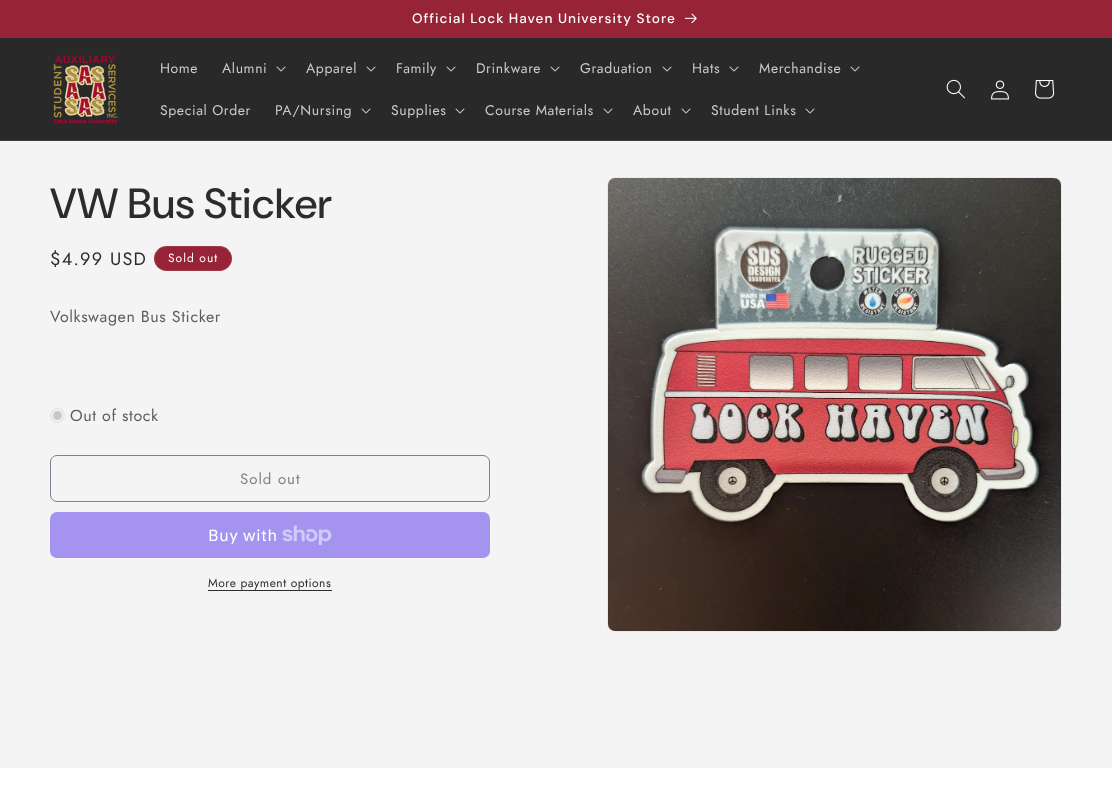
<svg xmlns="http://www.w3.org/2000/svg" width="1112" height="792">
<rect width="100%" height="100%" fill="#f4f4f4"/>
<rect width="1112" height="38" fill="#972336"/>
<text x="412" y="23" style="font-family:'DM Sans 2';font-size:13.6px;font-weight:500;letter-spacing:1px;fill:#fff">Official Lock Haven University Store</text>
<image x="685" y="13" width="12" height="11" href="media/1.png"/>
<rect y="38" width="1112" height="102" fill="#292929"/>
<rect y="140" width="1112" height="1" fill="#3a3a3a"/>
<image x="53" y="55" width="66" height="70" href="media/2.png"/>
<text x="160" y="73" style="font-family:Jost;font-size:14px;letter-spacing:0.6px;fill:#cacaca">Home</text>
<text x="222" y="73" style="font-family:Jost;font-size:14px;letter-spacing:0.6px;fill:#cacaca">Alumni</text>
<image x="276" y="66" width="10" height="6" href="media/3.png"/>
<text x="306" y="73" style="font-family:Jost;font-size:14px;letter-spacing:0.6px;fill:#cacaca">Apparel</text>
<image x="366" y="66" width="10" height="6" href="media/3.png"/>
<text x="396" y="73" style="font-family:Jost;font-size:14px;letter-spacing:0.6px;fill:#cacaca">Family</text>
<image x="446" y="66" width="10" height="6" href="media/3.png"/>
<text x="476" y="73" style="font-family:Jost;font-size:14px;letter-spacing:0.6px;fill:#cacaca">Drinkware</text>
<image x="550" y="66" width="10" height="6" href="media/3.png"/>
<text x="580" y="73" style="font-family:Jost;font-size:14px;letter-spacing:0.6px;fill:#cacaca">Graduation</text>
<image x="662" y="66" width="10" height="6" href="media/3.png"/>
<text x="692" y="73" style="font-family:Jost;font-size:14px;letter-spacing:0.6px;fill:#cacaca">Hats</text>
<image x="729" y="66" width="10" height="6" href="media/3.png"/>
<text x="759" y="73" style="font-family:Jost;font-size:14px;letter-spacing:0.6px;fill:#cacaca">Merchandise</text>
<image x="850" y="66" width="10" height="6" href="media/3.png"/>
<text x="160" y="115" style="font-family:Jost;font-size:14px;letter-spacing:0.6px;fill:#cacaca">Special Order</text>
<text x="275" y="115" style="font-family:Jost;font-size:14px;letter-spacing:0.6px;fill:#cacaca">PA/Nursing</text>
<image x="361" y="108" width="10" height="6" href="media/3.png"/>
<text x="391" y="115" style="font-family:Jost;font-size:14px;letter-spacing:0.6px;fill:#cacaca">Supplies</text>
<image x="455" y="108" width="10" height="6" href="media/3.png"/>
<text x="485" y="115" style="font-family:Jost;font-size:14px;letter-spacing:0.6px;fill:#cacaca">Course Materials</text>
<image x="603" y="108" width="10" height="6" href="media/3.png"/>
<text x="633" y="115" style="font-family:Jost;font-size:14px;letter-spacing:0.6px;fill:#cacaca">About</text>
<image x="681" y="108" width="10" height="6" href="media/3.png"/>
<text x="711" y="115" style="font-family:Jost;font-size:14px;letter-spacing:0.6px;fill:#cacaca">Student Links</text>
<image x="805" y="108" width="10" height="6" href="media/3.png"/>
<image x="946" y="79" width="19" height="20" href="media/4.png"/>
<image x="991" y="80" width="18" height="20" href="media/5.png"/>
<image x="1035" y="80" width="20" height="19" href="media/6.png"/>
<text x="50" y="218" style="font-family:DM Sans;font-size:42px;font-weight:500;letter-spacing:0.6px;fill:#2b2c2d">VW Bus Sticker</text>
<text x="50" y="265" style="font-family:Jost;font-size:18px;letter-spacing:1.25px;fill:#2b2c2d">$4.99 USD</text>
<rect x="154" y="246" width="78" height="25" rx="12.5" fill="#972336"/>
<rect x="154.5" y="246.5" width="77" height="24" rx="12" fill="none" stroke="#ffffff1a"/>
<text x="168" y="262" style="font-family:Jost;font-size:12px;letter-spacing:1px;fill:#fff">Sold out</text>
<text x="50" y="322" style="font-family:Jost;font-size:16px;letter-spacing:0.6px;fill:#5d5e5f">Volkswagen Bus Sticker</text>
<circle cx="57.5" cy="415.5" r="7.5" fill="#e7e7e7"/>
<circle cx="57.5" cy="415.5" r="5" fill="#c8c8c8" stroke="#fff"/>
<text x="70" y="421" style="font-family:Jost;font-size:16px;letter-spacing:0.6px;fill:#5d5e5f">Out of stock</text>
<rect x="50.5" y="455.5" width="439" height="46" rx="6.5" fill="none" stroke="#7a838e"/>
<text x="240" y="484" style="font-family:Jost;font-size:15px;letter-spacing:1px;fill:#7a838e">Sold out</text>
<rect x="50" y="512" width="440" height="46" rx="7" fill="#a494f0"/>
<text x="208" y="541" style="font-family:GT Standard;font-size:16px;letter-spacing:0.6px;fill:#fff">Buy with</text>
<image x="282" y="525" width="50" height="20" href="media/7.png"/>
<text x="208" y="587" style="font-family:Jost;font-size:12px;letter-spacing:0.5px;fill:#2b2c2d">More payment options</text>
<rect x="208" y="590" width="124" height="1" fill="#2b2c2d"/>
<rect x="607.5" y="177.5" width="454" height="454" rx="7.5" fill="none" stroke="#eaeaea"/>
<image x="608" y="178" width="453" height="453" href="media/8.png"/>
<rect y="768" width="1112" height="24" fill="#fff"/>
</svg>
